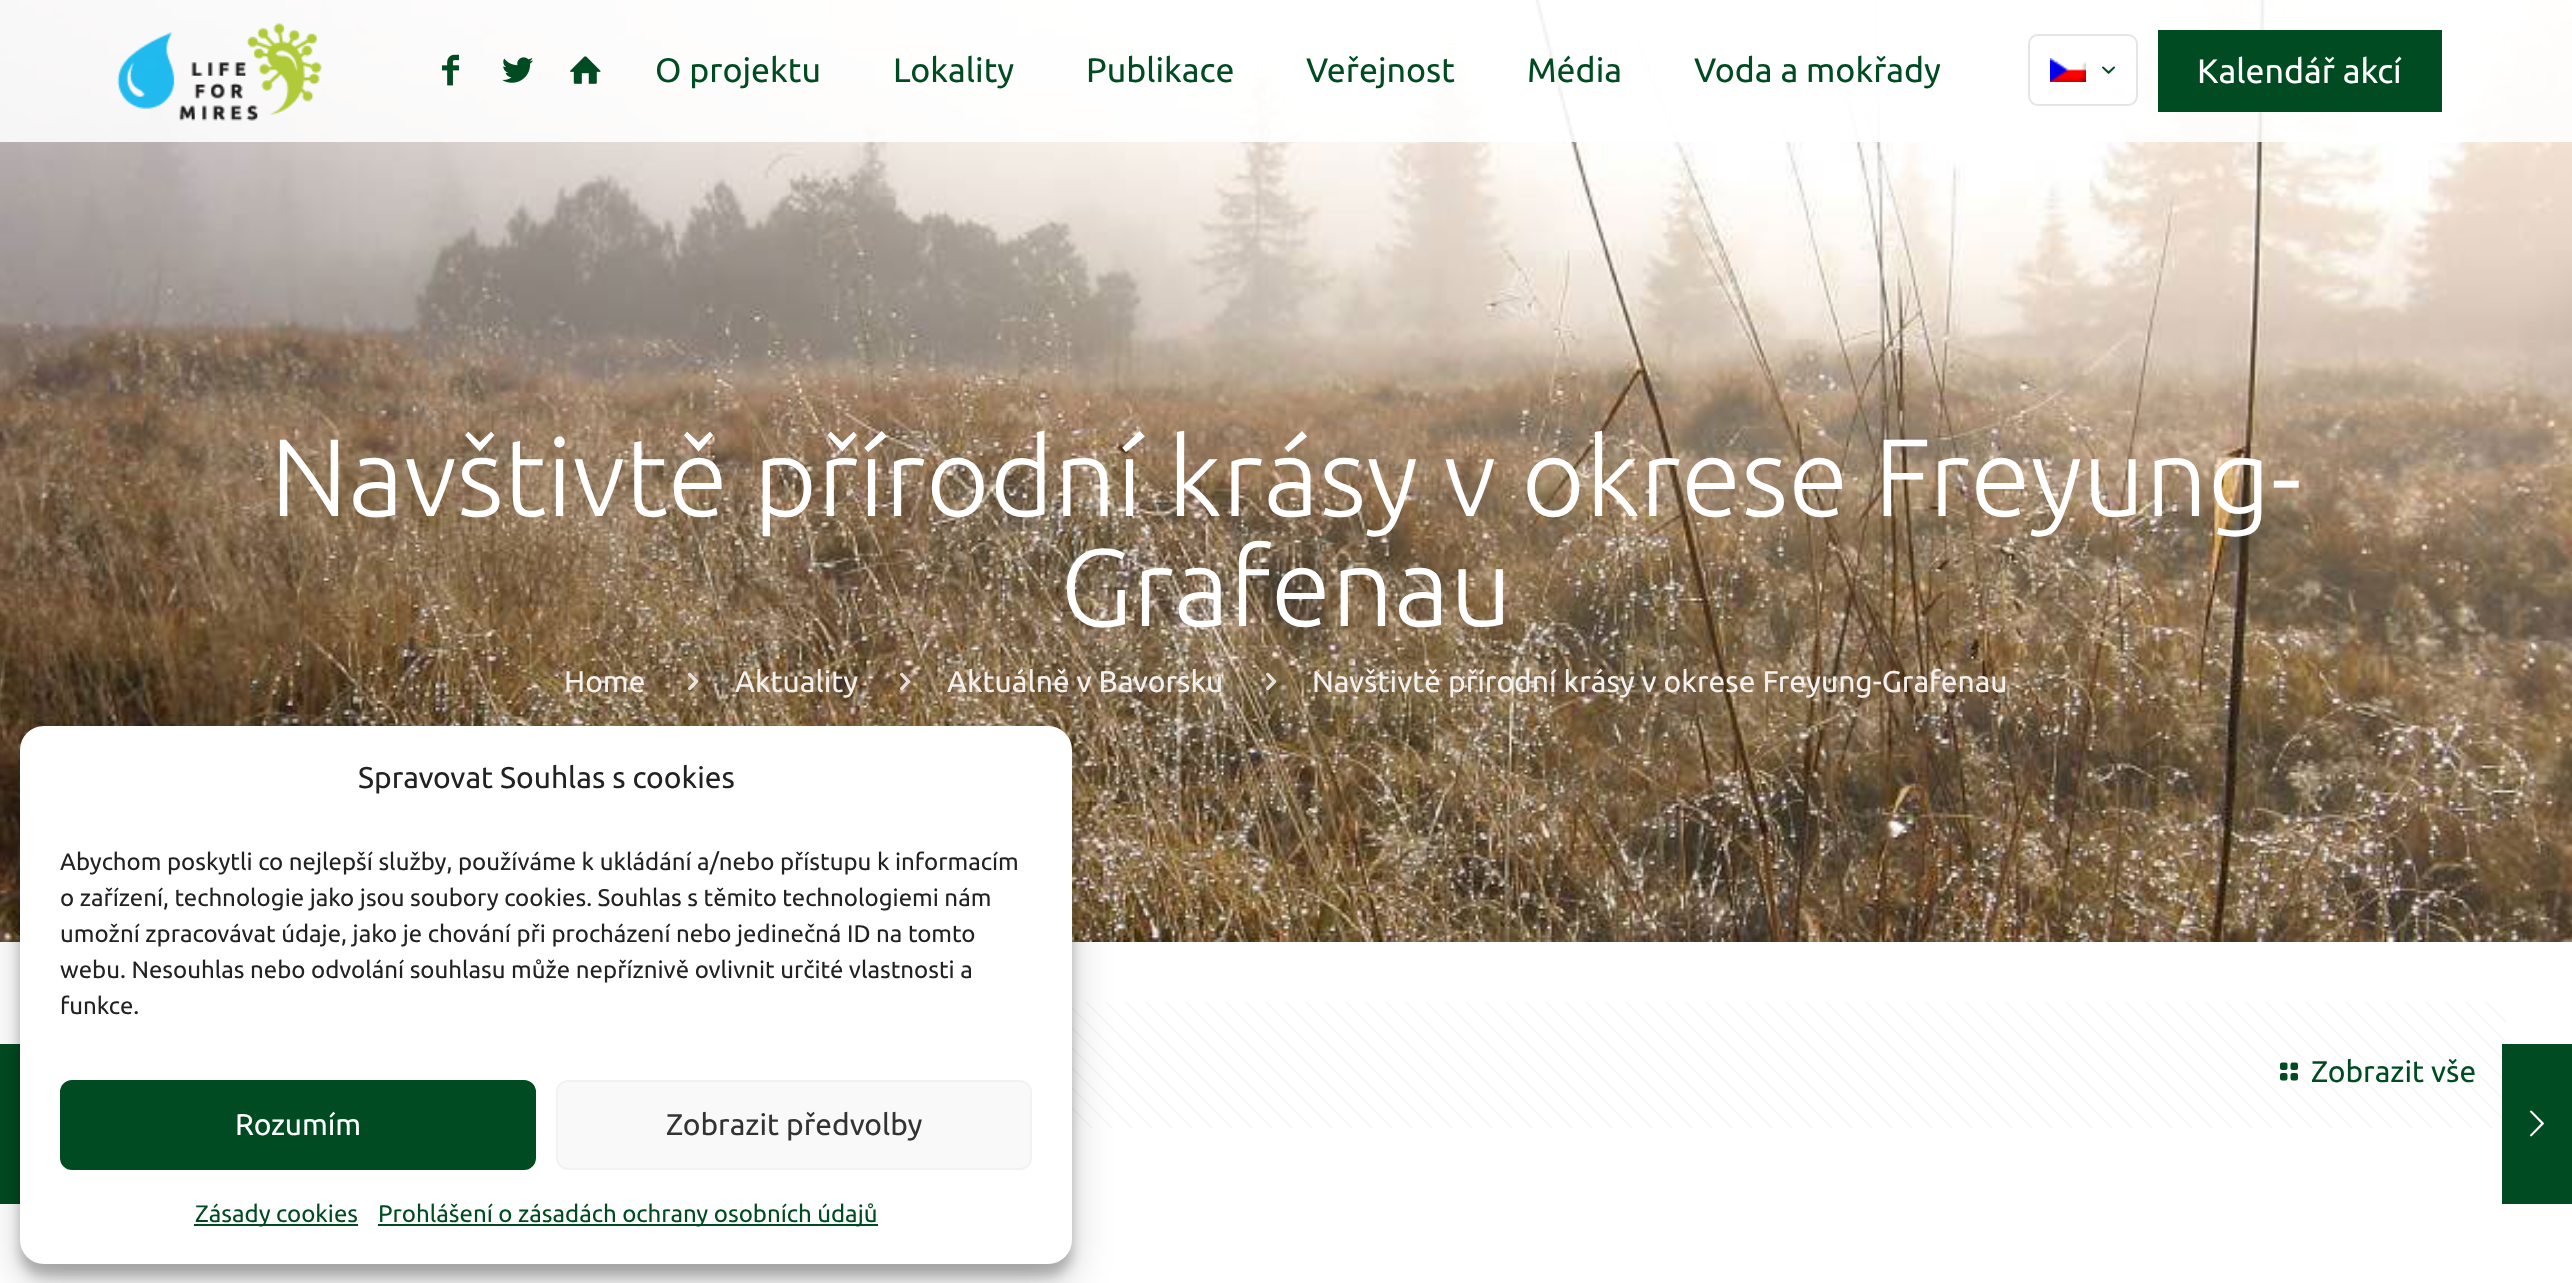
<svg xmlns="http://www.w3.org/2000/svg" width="2572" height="1283">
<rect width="100%" height="100%" fill="#fff"/>
<image x="0" y="0" width="2572" height="942" href="media/7.png"/>
<rect width="2572" height="142" fill="#ffffffe0"/>
<image x="117" y="23" width="205" height="98" href="media/1.png"/>
<image x="442" y="54" width="17" height="32" href="media/2.png"/>
<image x="502" y="57" width="32" height="26" href="media/3.png"/>
<image x="570" y="56" width="31" height="28" href="media/4.png"/>
<text x="655" y="82" style="font-family:Ubuntu;font-size:34px;fill:#004b21">O projektu</text>
<text x="893" y="82" style="font-family:Ubuntu;font-size:34px;fill:#004b21">Lokality</text>
<text x="1086" y="82" style="font-family:Ubuntu;font-size:34px;fill:#004b21">Publikace</text>
<text x="1306" y="82" style="font-family:Ubuntu;font-size:34px;fill:#004b21">Veřejnost</text>
<text x="1527" y="82" style="font-family:Ubuntu;font-size:34px;fill:#004b21">Média</text>
<text x="1694" y="82" style="font-family:Ubuntu;font-size:34px;fill:#004b21">Voda a mokřady</text>
<rect x="2029" y="35" width="108" height="70" rx="9" fill="none" stroke="#e5e5e5" stroke-width="2"/>
<image x="2050" y="58" width="36" height="24" href="media/5.png"/>
<image x="2102" y="66" width="13" height="8" href="media/6.png"/>
<rect x="2158" y="30" width="284" height="82" fill="#004b21"/>
<text x="2197" y="83" style="font-family:Ubuntu;font-size:34px;fill:#fff">Kalendář akcí</text>
<text x="270" y="516" style="font-family:Ubuntu;font-size:110px;font-weight:300;fill:#fff">Navštivtě přírodní krásy v okrese Freyung-</text>
<text x="1060" y="626" style="font-family:Ubuntu;font-size:110px;font-weight:300;fill:#fff">Grafenau</text>
<text x="564" y="692" style="font-family:Ubuntu;font-size:30px;fill:#f3f1ee">Home</text>
<image x="688" y="672" width="11" height="19" href="media/8.png"/>
<text x="735" y="692" style="font-family:Ubuntu;font-size:30px;fill:#f3f1ee">Aktuality</text>
<image x="900" y="672" width="11" height="19" href="media/9.png"/>
<text x="947" y="692" style="font-family:Ubuntu;font-size:30px;fill:#f3f1ee">Aktuálně v Bavorsku</text>
<image x="1266" y="672" width="11" height="19" href="media/10.png"/>
<text x="1312" y="692" style="font-family:Ubuntu;font-size:30px;fill:#f3f1ee">Navštivtě přírodní krásy v okrese Freyung-Grafenau</text>
<image x="1072" y="1002" width="1434" height="126" href="media/11.png"/>
<image x="2280" y="1062" width="18" height="19" href="media/12.png"/>
<text x="2311" y="1082" style="font-family:Ubuntu;font-size:30px;fill:#004b21">Zobrazit vše</text>
<rect y="1044" width="20" height="160" fill="#004b21"/>
<rect x="20" y="738" width="1052" height="538" rx="24" fill="#0000003b" filter="blur(6px)"/>
<rect x="20" y="746" width="1052" height="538" rx="24" fill="#00000030" filter="blur(20px)"/>
<rect x="20" y="726" width="1052" height="538" rx="24" fill="#fff"/>
<text x="358" y="788" style="font-family:Ubuntu;font-size:30px;fill:#222">Spravovat Souhlas s cookies</text>
<text x="60" y="870" style="font-family:Ubuntu;font-size:24px;fill:#222">Abychom poskytli co nejlepší služby, používáme k ukládání a/nebo přístupu k informacím</text>
<text x="60" y="906" style="font-family:Ubuntu;font-size:24px;fill:#222">o zařízení, technologie jako jsou soubory cookies. Souhlas s těmito technologiemi nám</text>
<text x="60" y="942" style="font-family:Ubuntu;font-size:24px;fill:#222">umožní zpracovávat údaje, jako je chování při procházení nebo jedinečná ID na tomto</text>
<text x="60" y="978" style="font-family:Ubuntu;font-size:24px;fill:#222">webu. Nesouhlas nebo odvolání souhlasu může nepříznivě ovlivnit určité vlastnosti a</text>
<text x="60" y="1014" style="font-family:Ubuntu;font-size:24px;fill:#222">funkce.</text>
<rect x="61" y="1081" width="474" height="88" rx="11" fill="#004b21" stroke="#004b21" stroke-width="2"/>
<text x="235" y="1135" style="font-family:Ubuntu;font-size:30px;fill:#fff">Rozumím</text>
<rect x="557" y="1081" width="474" height="88" rx="11" fill="#f9f9f9" stroke="#f2f2f2" stroke-width="2"/>
<text x="666" y="1135" style="font-family:Ubuntu;font-size:30px;fill:#333">Zobrazit předvolby</text>
<rect x="194" y="1224" width="164" height="2" fill="#004b21"/>
<text x="195" y="1222" style="font-family:Ubuntu;font-size:24px;fill:#004b21">Zásady cookies</text>
<rect x="378" y="1224" width="500" height="2" fill="#004b21"/>
<text x="378" y="1222" style="font-family:Ubuntu;font-size:24px;fill:#004b21">Prohlášení o zásadách ochrany osobních údajů</text>
<rect x="2502" y="1044" width="70" height="160" fill="#004b21"/>
<image x="2530" y="1110" width="14" height="27" href="media/13.png"/>
</svg>
